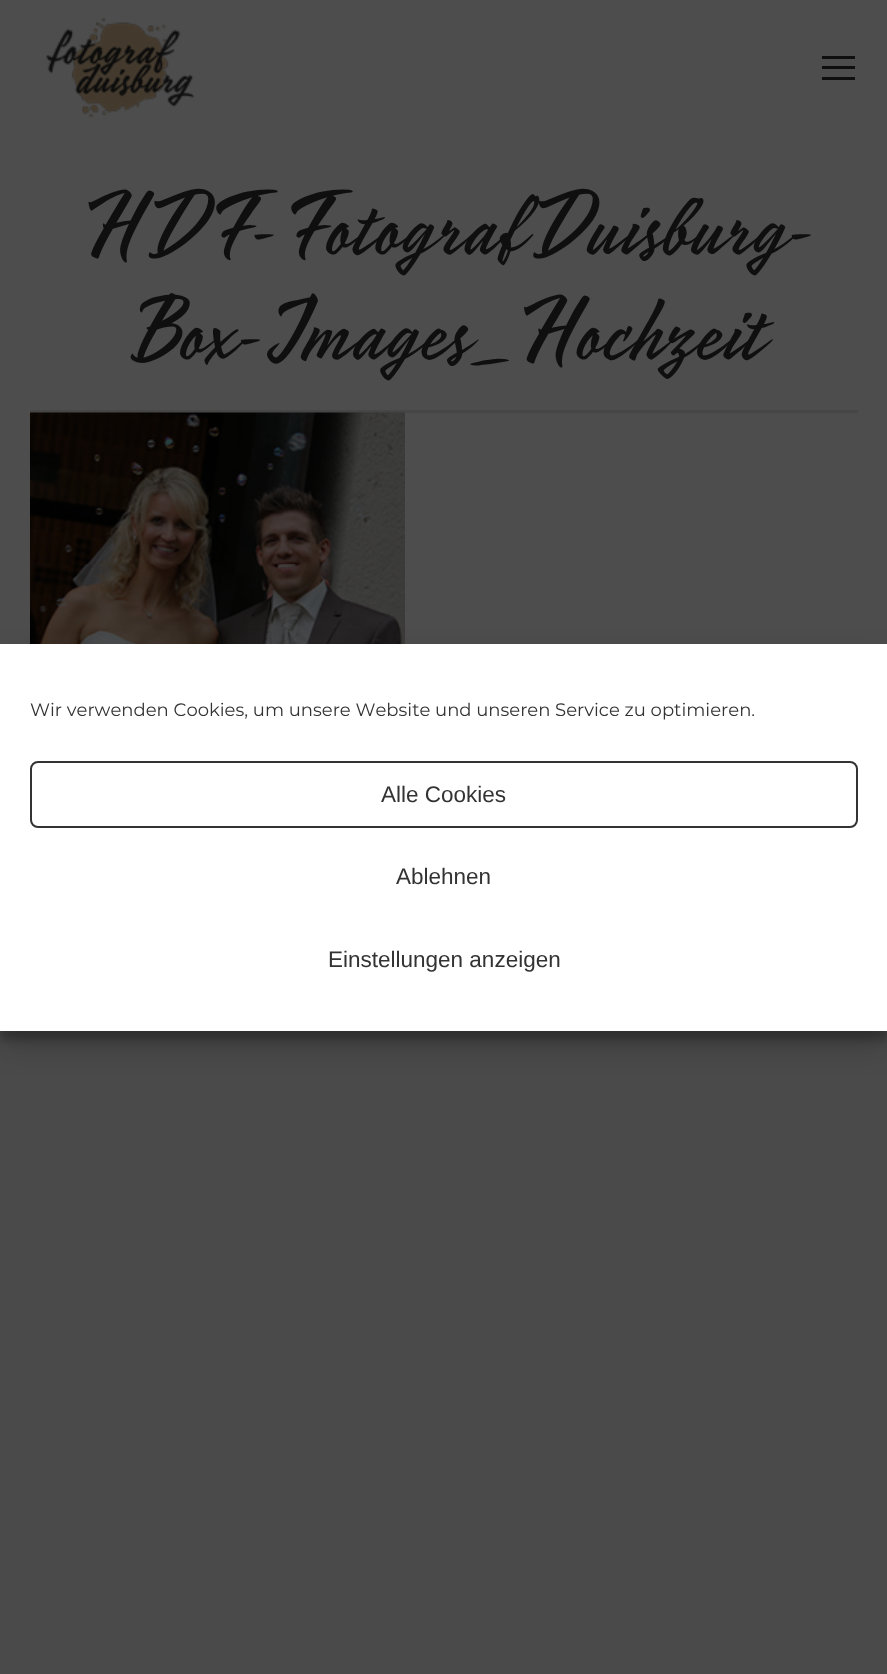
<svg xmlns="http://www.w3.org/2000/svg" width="887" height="1674">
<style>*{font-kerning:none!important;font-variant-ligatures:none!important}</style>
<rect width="100%" height="100%" fill="#4a4a4a"/>
<rect width="887" height="644" fill="#4d4d4d"/>
<image x="46" y="17" width="148" height="101" href="media/1.png"/>
<rect x="822" y="56" width="33" height="3" fill="#0f0f0f"/>
<rect x="822" y="66" width="33" height="3" fill="#0f0f0f"/>
<rect x="822" y="77" width="33" height="3" fill="#0f0f0f"/>
<text x="75" y="254" style="font-family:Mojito;font-size:90px;fill:#0f0f0f">HDF-FotografDuisburg-</text>
<text x="126" y="359" style="font-family:Mojito;font-size:90px;fill:#0f0f0f">Box-Images_Hochzeit</text>
<image x="30" y="412" width="375" height="232" href="media/2.png"/>
<rect x="30" y="410" width="828" height="3" fill="#0f0f0f1c"/>
<rect y="653" width="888" height="387" fill="#0000003b" filter="blur(4.5px)"/>
<rect y="659" width="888" height="387" fill="#00000030" filter="blur(15px)"/>
<rect y="644" width="887" height="387" fill="#fff"/>
<text x="30" y="716" style="font-family:Montserrat;font-size:18px;fill:#333">Wir verwenden Cookies, um unsere Website und unseren Service zu optimieren.</text>
<rect x="31" y="762" width="826" height="65" rx="7" fill="none" stroke="#333" stroke-width="2"/>
<text x="381" y="802" style="font-family:Liberation Sans;font-size:22.5px;fill:#333">Alle Cookies</text>
<text x="396" y="884" style="font-family:Liberation Sans;font-size:22.5px;fill:#333">Ablehnen</text>
<text x="328" y="967" style="font-family:Liberation Sans;font-size:22.5px;fill:#333">Einstellungen anzeigen</text>
</svg>
